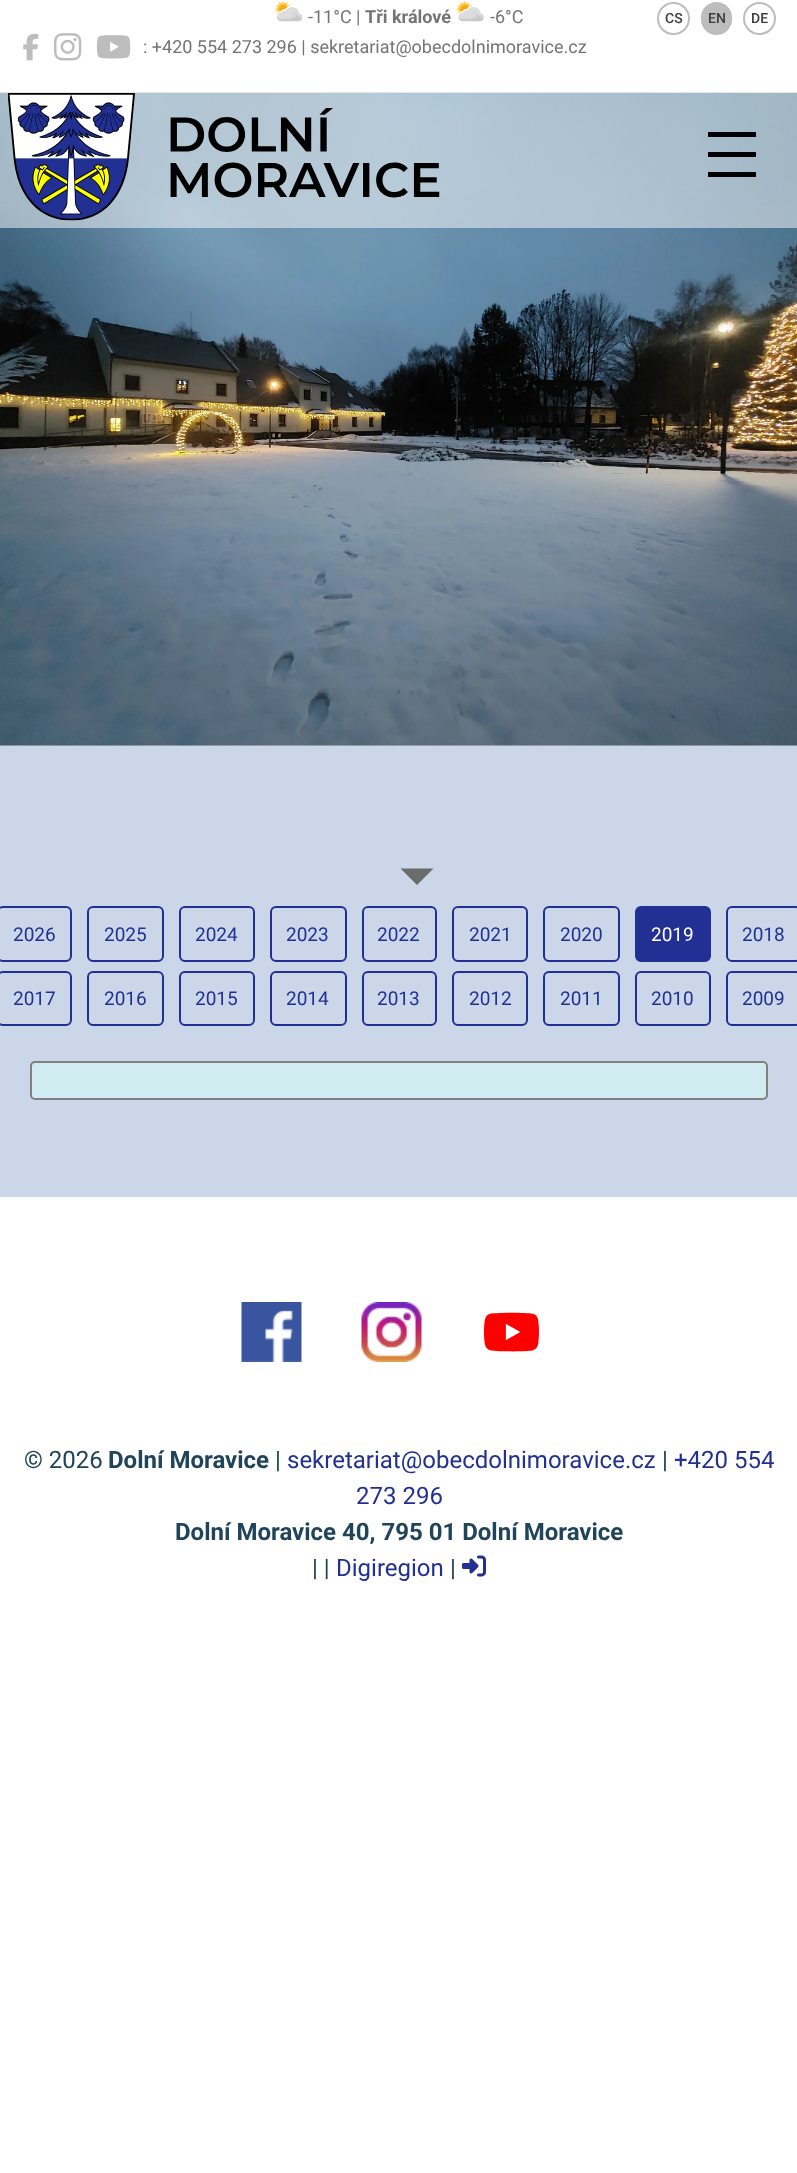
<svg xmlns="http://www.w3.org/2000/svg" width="797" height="2173">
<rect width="100%" height="100%" fill="#fff"/>
<rect y="92" width="797" height="1" fill="#e5e5e5"/>
<image x="275" y="0" width="28" height="22" href="media/1.png"/>
<text x="308" y="23" style="font-family:Roboto;font-size:18px;fill:#747474">-11°C |</text>
<text x="365" y="23" style="font-family:Roboto;font-size:18px;font-weight:bold;fill:#747474">Tři králové</text>
<image x="456" y="0" width="28" height="22" href="media/2.png"/>
<text x="490" y="23" style="font-family:Roboto;font-size:18px;fill:#747474">-6°C</text>
<circle cx="673.5" cy="18.5" r="15.5" fill="none" stroke="#bebdbd" stroke-width="2"/>
<text x="665" y="23" style="font-family:Roboto;font-size:14px;font-weight:500;fill:#3d3d3d">CS</text>
<rect x="702" y="3" width="29" height="31" rx="14.5" fill="#bebdbd" stroke="#bebdbd" stroke-width="2"/>
<text x="708" y="23" style="font-family:Roboto;font-size:14px;font-weight:500;fill:#3d3d3d">EN</text>
<circle cx="759.5" cy="18.5" r="15.5" fill="none" stroke="#bebdbd" stroke-width="2"/>
<text x="751" y="23" style="font-family:Roboto;font-size:14px;font-weight:500;fill:#3d3d3d">DE</text>
<image x="23" y="33" width="16" height="28" href="media/3.png"/>
<image x="54" y="33" width="28" height="28" href="media/4.png"/>
<image x="96" y="35" width="35" height="24" href="media/5.png"/>
<text x="143" y="53" style="font-family:Roboto;font-size:18px;fill:#747474">: +420 554 273 296 | sekretariat@obecdolnimoravice.cz</text>
<rect y="745" width="797" height="1" fill="#ccc"/>
<image x="0" y="93" width="797" height="653" href="media/7.png"/>
<rect y="93" width="797" height="135" fill="#ffffff80"/>
<image x="8" y="93" width="432" height="128" href="media/6.png"/>
<rect x="708" y="132" width="48" height="5" fill="#000"/>
<rect x="708" y="152" width="48" height="5" fill="#000"/>
<rect x="708" y="172" width="48" height="5" fill="#000"/>
<rect y="746" width="797" height="451" fill="#cbd7e9"/>
<path d="M400.5 868.5h33l-16.5 16.5z" fill="#6c6c6c"/>
<rect x="-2" y="907" width="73" height="54" rx="5" fill="none" stroke="#213092" stroke-width="2"/>
<text x="13" y="941" style="font-family:Roboto;font-size:19px;fill:#213092">2026</text>
<rect x="88" y="907" width="75" height="54" rx="5" fill="none" stroke="#213092" stroke-width="2"/>
<text x="104" y="941" style="font-family:Roboto;font-size:19px;fill:#213092">2025</text>
<rect x="180" y="907" width="74" height="54" rx="5" fill="none" stroke="#213092" stroke-width="2"/>
<text x="195" y="941" style="font-family:Roboto;font-size:19px;fill:#213092">2024</text>
<rect x="271" y="907" width="75" height="54" rx="5" fill="none" stroke="#213092" stroke-width="2"/>
<text x="286" y="941" style="font-family:Roboto;font-size:19px;fill:#213092">2023</text>
<rect x="363" y="907" width="73" height="54" rx="5" fill="none" stroke="#213092" stroke-width="2"/>
<text x="377" y="941" style="font-family:Roboto;font-size:19px;fill:#213092">2022</text>
<rect x="453" y="907" width="74" height="54" rx="5" fill="none" stroke="#213092" stroke-width="2"/>
<text x="469" y="941" style="font-family:Roboto;font-size:19px;fill:#213092">2021</text>
<rect x="544" y="907" width="75" height="54" rx="5" fill="none" stroke="#213092" stroke-width="2"/>
<text x="560" y="941" style="font-family:Roboto;font-size:19px;fill:#213092">2020</text>
<rect x="636" y="907" width="74" height="54" rx="5" fill="#213092" stroke="#213092" stroke-width="2"/>
<text x="651" y="941" style="font-family:Roboto;font-size:19px;fill:#fff">2019</text>
<rect x="727" y="907" width="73" height="54" rx="5" fill="none" stroke="#213092" stroke-width="2"/>
<text x="742" y="941" style="font-family:Roboto;font-size:19px;fill:#213092">2018</text>
<rect x="-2" y="972" width="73" height="53" rx="5" fill="none" stroke="#213092" stroke-width="2"/>
<text x="13" y="1005" style="font-family:Roboto;font-size:19px;fill:#213092">2017</text>
<rect x="88" y="972" width="75" height="53" rx="5" fill="none" stroke="#213092" stroke-width="2"/>
<text x="104" y="1005" style="font-family:Roboto;font-size:19px;fill:#213092">2016</text>
<rect x="180" y="972" width="74" height="53" rx="5" fill="none" stroke="#213092" stroke-width="2"/>
<text x="195" y="1005" style="font-family:Roboto;font-size:19px;fill:#213092">2015</text>
<rect x="271" y="972" width="75" height="53" rx="5" fill="none" stroke="#213092" stroke-width="2"/>
<text x="286" y="1005" style="font-family:Roboto;font-size:19px;fill:#213092">2014</text>
<rect x="363" y="972" width="73" height="53" rx="5" fill="none" stroke="#213092" stroke-width="2"/>
<text x="377" y="1005" style="font-family:Roboto;font-size:19px;fill:#213092">2013</text>
<rect x="453" y="972" width="74" height="53" rx="5" fill="none" stroke="#213092" stroke-width="2"/>
<text x="469" y="1005" style="font-family:Roboto;font-size:19px;fill:#213092">2012</text>
<rect x="544" y="972" width="75" height="53" rx="5" fill="none" stroke="#213092" stroke-width="2"/>
<text x="560" y="1005" style="font-family:Roboto;font-size:19px;fill:#213092">2011</text>
<rect x="636" y="972" width="74" height="53" rx="5" fill="none" stroke="#213092" stroke-width="2"/>
<text x="651" y="1005" style="font-family:Roboto;font-size:19px;fill:#213092">2010</text>
<rect x="727" y="972" width="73" height="53" rx="5" fill="none" stroke="#213092" stroke-width="2"/>
<text x="742" y="1005" style="font-family:Roboto;font-size:19px;fill:#213092">2009</text>
<rect x="31" y="1062" width="736" height="37" rx="4" fill="#d1ecf1" stroke="#808080" stroke-width="2"/>
<image x="241" y="1302" width="61" height="60" href="media/8.png"/>
<image x="361" y="1302" width="61" height="60" href="media/9.png"/>
<image x="484" y="1312" width="55" height="40" href="media/10.png"/>
<text x="24" y="1468" style="font-family:Roboto;font-size:24px;fill:#204459">© 2026</text>
<text x="108" y="1468" style="font-family:Roboto;font-size:24px;font-weight:bold;fill:#204459">Dolní Moravice</text>
<text x="275" y="1468" style="font-family:Roboto;font-size:24px;fill:#204459">|</text>
<text x="287" y="1468" style="font-family:Roboto;font-size:24px;fill:#213092">sekretariat@obecdolnimoravice.cz</text>
<text x="662" y="1468" style="font-family:Roboto;font-size:24px;fill:#204459">|</text>
<text x="674" y="1468" style="font-family:Roboto;font-size:24px;fill:#213092">+420 554</text>
<text x="356" y="1504" style="font-family:Roboto;font-size:24px;fill:#213092">273 296</text>
<text x="175" y="1540" style="font-family:Roboto;font-size:24px;font-weight:bold;fill:#204459">Dolní Moravice 40, 795 01 Dolní Moravice</text>
<text x="312" y="1576" style="font-family:Roboto;font-size:24px;fill:#204459">| |</text>
<text x="336" y="1576" style="font-family:Roboto;font-size:24px;fill:#213092">Digiregion</text>
<text x="450" y="1576" style="font-family:Roboto;font-size:24px;fill:#204459">|</text>
<image x="462" y="1555" width="24" height="22" href="media/11.png"/>
</svg>
